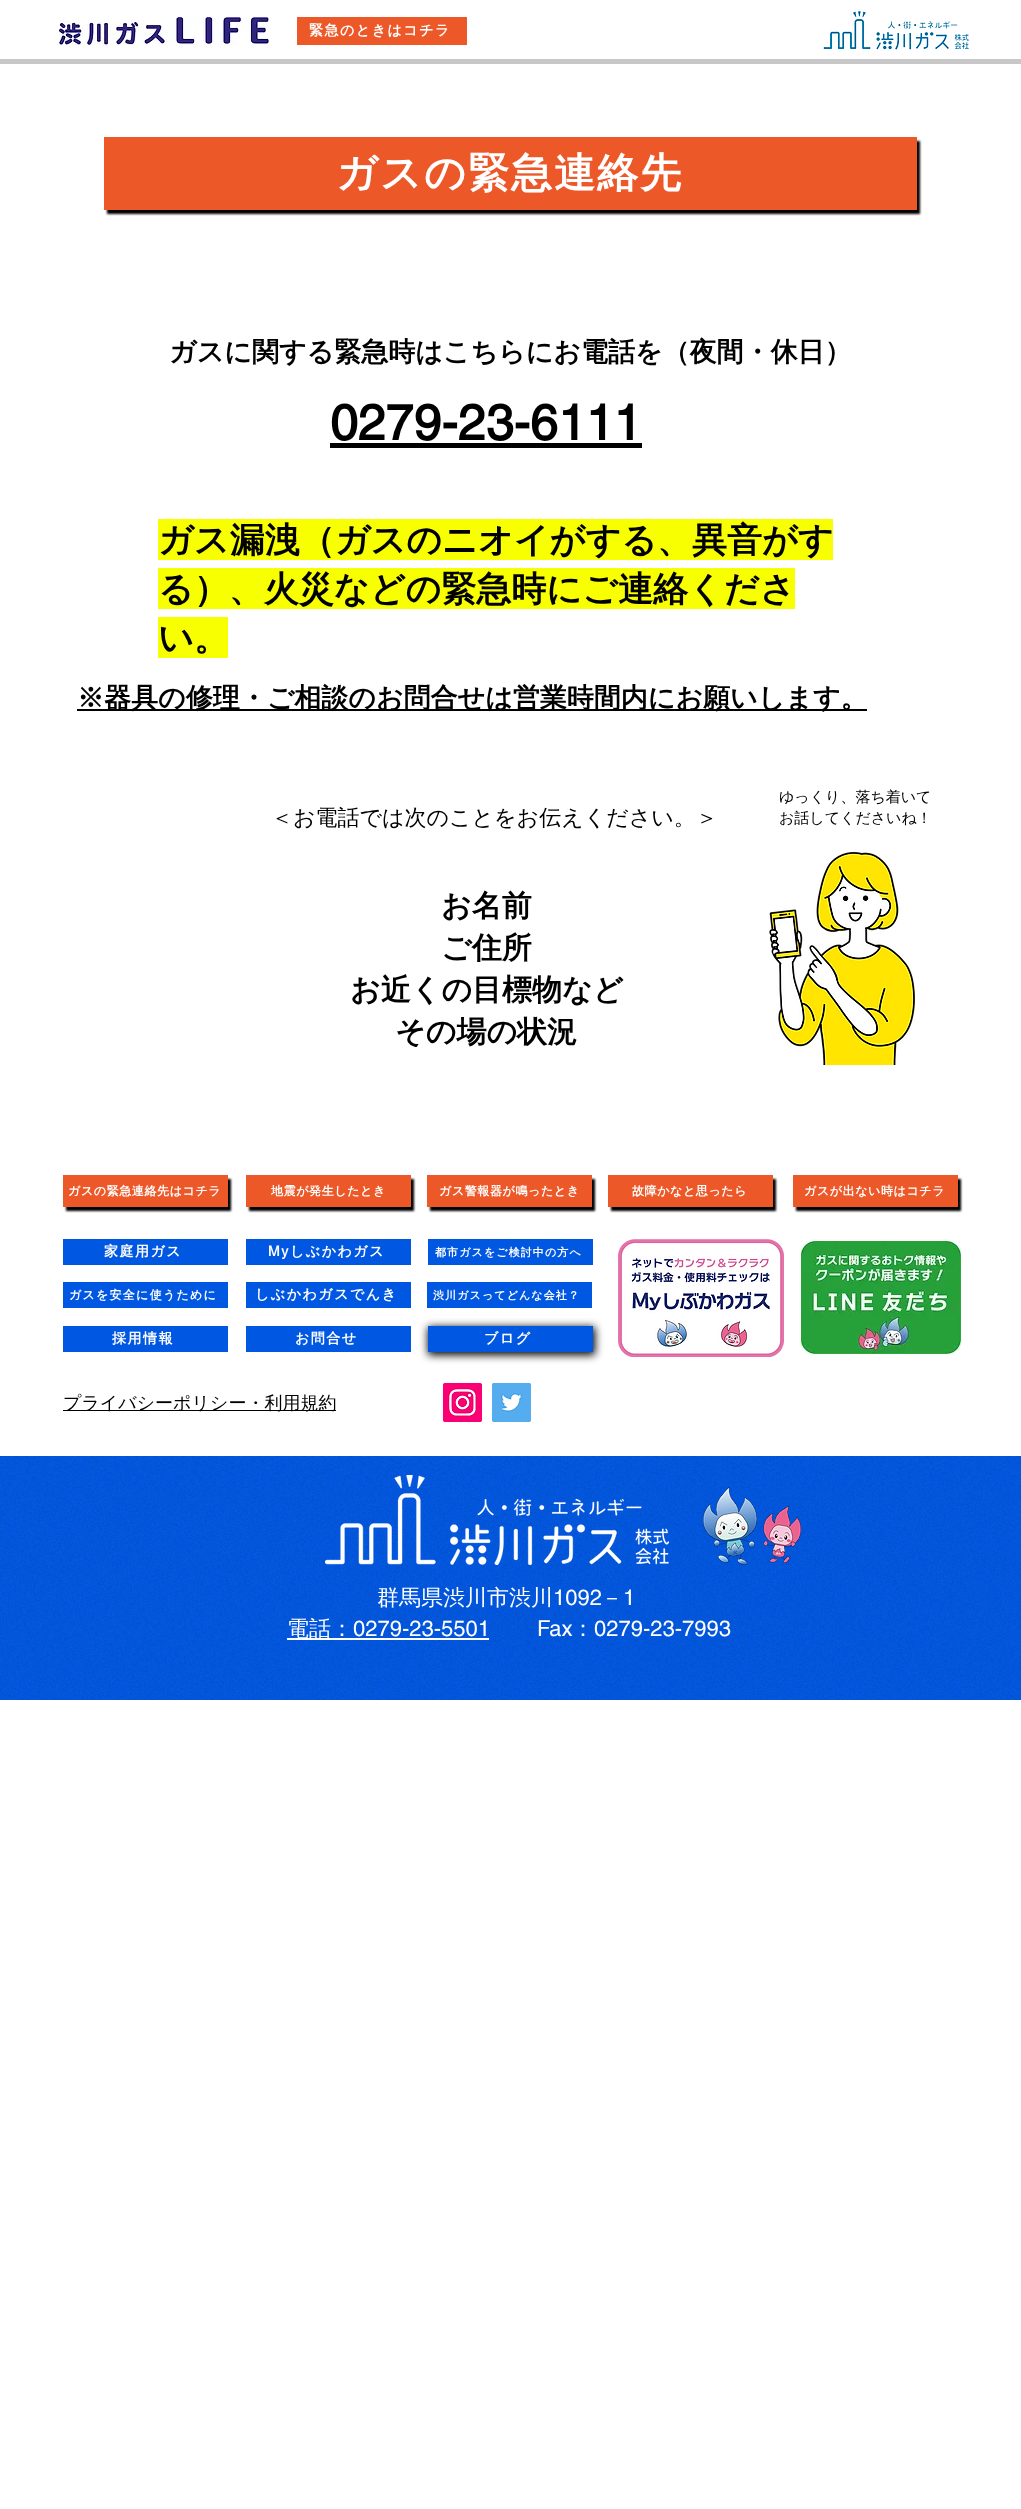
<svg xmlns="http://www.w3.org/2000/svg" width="1021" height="2509">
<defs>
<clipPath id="clip1"><rect x="271" y="1183" width="114" height="17"/></clipPath>
</defs>
<rect width="100%" height="100%" fill="#fff"/>
<image x="59" y="17" width="210" height="28" href="media/1.png"/>
<rect x="297" y="17" width="170" height="28" fill="#ed5829"/>
<text x="309" y="35" style="font-family:WenQuanYi Zen Hei;font-size:14px;font-weight:bold;letter-spacing:1.5px;fill:#fff">緊急のときはコチラ</text>
<image x="823" y="9" width="146" height="41" href="media/2.png"/>
<rect y="59" width="1021" height="5" fill="#c7c7c7"/>
<rect x="107" y="141" width="813" height="73" fill="#000" filter="blur(1px)"/>
<rect x="104" y="137" width="813" height="73" fill="#ed5829"/>
<text x="336" y="187" style="font-family:WenQuanYi Zen Hei;font-size:41px;font-weight:bold;letter-spacing:2px;fill:#fff">ガスの緊急連絡先</text>
<text x="169" y="361" style="font-family:WenQuanYi Zen Hei;font-size:27px;font-weight:bold;fill:#000">ガスに関する緊急時はこちらにお電話を（夜間・休日）</text>
<text x="330" y="440" style="font-family:helvetica;font-size:50px;font-weight:bold;fill:#000">0279-23-6111</text>
<rect x="330" y="443" width="312" height="5" fill="#000"/>
<rect x="158" y="519" width="675" height="41" fill="#f8ff00"/>
<text x="158" y="552" style="font-family:WenQuanYi Zen Hei;font-size:35px;font-weight:bold;fill:#000">ガス漏洩（ガスのニオイがする、異音がす</text>
<rect x="158" y="568" width="637" height="41" fill="#f8ff00"/>
<text x="158" y="601" style="font-family:WenQuanYi Zen Hei;font-size:35px;font-weight:bold;fill:#000">る）、火災などの緊急時にご連絡くださ</text>
<rect x="158" y="617" width="70" height="41" fill="#f8ff00"/>
<text x="158" y="650" style="font-family:WenQuanYi Zen Hei;font-size:35px;font-weight:bold;fill:#000">い。</text>
<rect x="77" y="709" width="790" height="2" fill="#000"/>
<text x="77" y="707" style="font-family:WenQuanYi Zen Hei;font-size:27px;font-weight:bold;fill:#000">※器具の修理・ご相談のお問合せは営業時間内にお願いします。</text>
<text x="271" y="825" style="font-family:WenQuanYi Zen Hei;font-size:22px;font-weight:500;fill:#000">＜お電話では次のことをお伝えください。＞</text>
<text x="779" y="802" style="font-family:WenQuanYi Zen Hei;font-size:15px;font-weight:500;fill:#000">ゆっくり、落ち着いて</text>
<text x="779" y="823" style="font-family:WenQuanYi Zen Hei;font-size:15px;font-weight:500;fill:#000">お話してくださいね！</text>
<text x="441" y="916" style="font-family:WenQuanYi Zen Hei;font-size:30px;font-weight:bold;fill:#000">お名前</text>
<text x="441" y="958" style="font-family:WenQuanYi Zen Hei;font-size:30px;font-weight:bold;fill:#000">ご住所</text>
<text x="350" y="1000" style="font-family:WenQuanYi Zen Hei;font-size:30px;font-weight:bold;fill:#000">お近くの目標物など</text>
<text x="395" y="1042" style="font-family:WenQuanYi Zen Hei;font-size:30px;font-weight:bold;fill:#000">その場の状況</text>
<image x="769" y="851" width="146" height="214" href="media/3.png"/>
<rect x="66" y="1179" width="165" height="32" fill="#000" filter="blur(1px)"/>
<rect x="63" y="1175" width="165" height="32" fill="#ed5829"/>
<text x="68" y="1195" style="font-family:WenQuanYi Zen Hei;font-size:12px;font-weight:bold;letter-spacing:0.6px;fill:#fff">ガスの緊急連絡先はコチラ</text>
<rect x="249" y="1179" width="165" height="32" fill="#000" filter="blur(1px)"/>
<rect x="246" y="1175" width="165" height="32" fill="#ed5829"/>
<g clip-path="url(#clip1)">
<text x="271" y="1195" style="font-family:WenQuanYi Zen Hei;font-size:12px;font-weight:bold;letter-spacing:0.6px;fill:#fff">地震が発生したとき</text>
</g>
<rect x="430" y="1179" width="165" height="32" fill="#000" filter="blur(1px)"/>
<rect x="427" y="1175" width="165" height="32" fill="#ed5829"/>
<text x="439" y="1195" style="font-family:WenQuanYi Zen Hei;font-size:12px;font-weight:bold;letter-spacing:0.6px;fill:#fff">ガス警報器が鳴ったとき</text>
<rect x="611" y="1179" width="165" height="32" fill="#000" filter="blur(1px)"/>
<rect x="608" y="1175" width="165" height="32" fill="#ed5829"/>
<text x="632" y="1195" style="font-family:WenQuanYi Zen Hei;font-size:12px;font-weight:bold;letter-spacing:0.6px;fill:#fff">故障かなと思ったら</text>
<rect x="796" y="1179" width="165" height="32" fill="#000" filter="blur(1px)"/>
<rect x="793" y="1175" width="165" height="32" fill="#ed5829"/>
<text x="804" y="1195" style="font-family:WenQuanYi Zen Hei;font-size:12px;font-weight:bold;letter-spacing:0.6px;fill:#fff">ガスが出ない時はコチラ</text>
<rect x="63" y="1239" width="165" height="26" fill="#0057e1"/>
<text x="104" y="1256" style="font-family:WenQuanYi Zen Hei;font-size:14px;font-weight:bold;letter-spacing:1.5px;fill:#fff">家庭用ガス</text>
<rect x="246" y="1239" width="165" height="26" fill="#0057e1"/>
<text x="268" y="1256" style="font-family:helvetica;font-size:14px;font-weight:bold;letter-spacing:1.5px;fill:#fff">My</text>
<text x="290" y="1256" style="font-family:WenQuanYi Zen Hei;font-size:14px;font-weight:bold;letter-spacing:1.5px;fill:#fff">しぶかわガス</text>
<rect x="428" y="1239" width="165" height="26" fill="#0057e1"/>
<text x="435" y="1256" style="font-family:WenQuanYi Zen Hei;font-size:11px;font-weight:bold;letter-spacing:1.1px;fill:#fff">都市ガスをご検討中の方へ</text>
<image x="618" y="1239" width="166" height="118" href="media/4.png"/>
<image x="801" y="1241" width="160" height="113" href="media/5.png"/>
<rect x="63" y="1282" width="165" height="26" fill="#0057e1"/>
<text x="69" y="1299" style="font-family:WenQuanYi Zen Hei;font-size:12px;font-weight:bold;letter-spacing:1.25px;fill:#fff">ガスを安全に使うために</text>
<rect x="246" y="1282" width="165" height="26" fill="#0057e1"/>
<text x="255" y="1299" style="font-family:WenQuanYi Zen Hei;font-size:14px;font-weight:bold;letter-spacing:1.5px;fill:#fff">しぶかわガスでんき</text>
<rect x="427" y="1282" width="165" height="26" fill="#0057e1"/>
<text x="433" y="1299" style="font-family:WenQuanYi Zen Hei;font-size:11px;font-weight:bold;letter-spacing:1.1px;fill:#fff">渋川ガスってどんな会社？</text>
<rect x="63" y="1326" width="165" height="26" fill="#0057e1"/>
<text x="112" y="1343" style="font-family:WenQuanYi Zen Hei;font-size:14px;font-weight:bold;letter-spacing:1.5px;fill:#fff">採用情報</text>
<rect x="246" y="1326" width="165" height="26" fill="#0057e1"/>
<text x="295" y="1343" style="font-family:WenQuanYi Zen Hei;font-size:14px;font-weight:bold;letter-spacing:1.5px;fill:#fff">お問合せ</text>
<rect x="428" y="1327" width="167" height="28" fill="#000" filter="blur(4px)"/>
<rect x="428" y="1326" width="165" height="26" fill="#0057e1"/>
<text x="484" y="1343" style="font-family:WenQuanYi Zen Hei;font-size:14px;font-weight:bold;letter-spacing:1.5px;fill:#fff">ブログ</text>
<rect x="63" y="1410" width="273" height="1" fill="#000"/>
<text x="63" y="1409" style="font-family:WenQuanYi Zen Hei;font-size:18px;font-weight:500;fill:#000">プライバシーポリシー・利用規約</text>
<image x="443" y="1383" width="39" height="39" href="media/6.png"/>
<image x="492" y="1383" width="39" height="39" href="media/7.png"/>
<rect y="1456" width="1021" height="244" fill="#0057e1"/>
<image x="0" y="1456" width="1021" height="244" href="media/8.png"/>
<image x="325" y="1475" width="344" height="90" href="media/9.png"/>
<image x="703" y="1487" width="98" height="78" href="media/10.png"/>
<text x="377" y="1605" style="font-family:WenQuanYi Zen Hei;font-size:22px;font-weight:500;fill:#fff">群馬県渋川市渋川</text>
<text x="553" y="1605" style="font-family:helvetica;font-size:22px;fill:#fff">1092</text>
<text x="601" y="1605" style="font-family:WenQuanYi Zen Hei;font-size:22px;font-weight:500;fill:#fff">－</text>
<text x="623" y="1605" style="font-family:helvetica;font-size:22px;fill:#fff">1</text>
<rect x="287" y="1638" width="202" height="2" fill="#fff"/>
<text x="287" y="1636" style="font-family:WenQuanYi Zen Hei;font-size:22px;font-weight:500;fill:#fff">電話：</text>
<text x="353" y="1636" style="font-family:helvetica;font-size:22px;fill:#fff">0279-23-5501</text>
<text x="537" y="1636" style="font-family:helvetica;font-size:22px;fill:#fff">Fax</text>
<text x="572" y="1636" style="font-family:WenQuanYi Zen Hei;font-size:22px;font-weight:500;fill:#fff">：</text>
<text x="594" y="1636" style="font-family:helvetica;font-size:22px;fill:#fff">0279-23-7993</text>
</svg>
